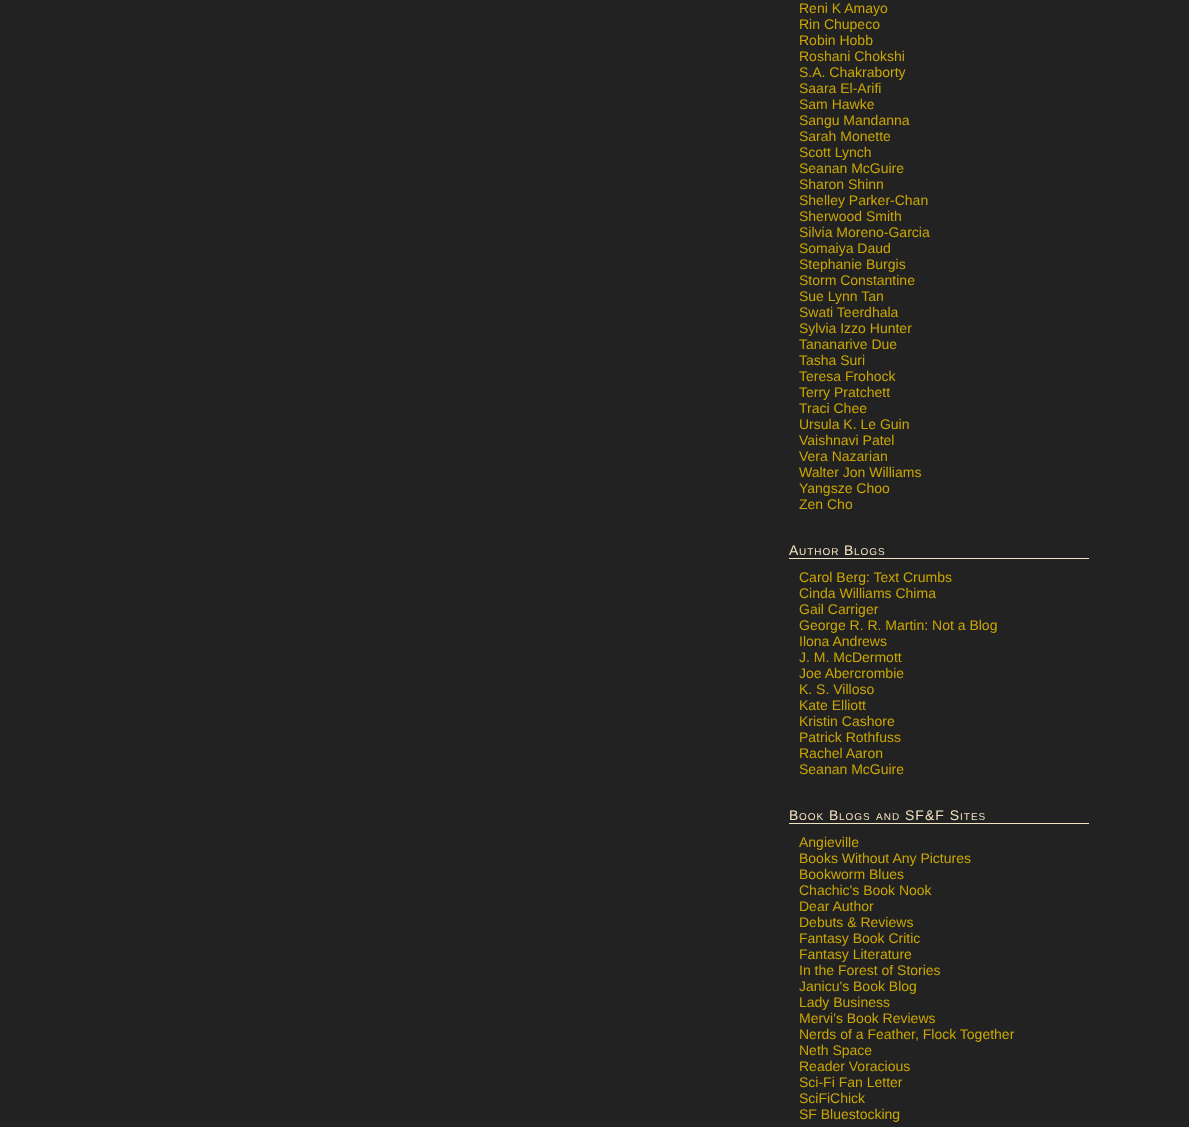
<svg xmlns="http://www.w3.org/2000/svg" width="1189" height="1127">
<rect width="100%" height="100%" fill="#222"/>
<text x="799" y="13" style="font-family:Liberation Sans;font-size:14px;fill:#cba704">Reni K Amayo</text>
<text x="799" y="29" style="font-family:Liberation Sans;font-size:14px;fill:#cba704">Rin Chupeco</text>
<text x="799" y="45" style="font-family:Liberation Sans;font-size:14px;fill:#cba704">Robin Hobb</text>
<text x="799" y="61" style="font-family:Liberation Sans;font-size:14px;fill:#cba704">Roshani Chokshi</text>
<text x="799" y="77" style="font-family:Liberation Sans;font-size:14px;fill:#cba704">S.A. Chakraborty</text>
<text x="799" y="93" style="font-family:Liberation Sans;font-size:14px;fill:#cba704">Saara El-Arifi</text>
<text x="799" y="109" style="font-family:Liberation Sans;font-size:14px;fill:#cba704">Sam Hawke</text>
<text x="799" y="125" style="font-family:Liberation Sans;font-size:14px;fill:#cba704">Sangu Mandanna</text>
<text x="799" y="141" style="font-family:Liberation Sans;font-size:14px;fill:#cba704">Sarah Monette</text>
<text x="799" y="157" style="font-family:Liberation Sans;font-size:14px;fill:#cba704">Scott Lynch</text>
<text x="799" y="173" style="font-family:Liberation Sans;font-size:14px;fill:#cba704">Seanan McGuire</text>
<text x="799" y="189" style="font-family:Liberation Sans;font-size:14px;fill:#cba704">Sharon Shinn</text>
<text x="799" y="205" style="font-family:Liberation Sans;font-size:14px;fill:#cba704">Shelley Parker-Chan</text>
<text x="799" y="221" style="font-family:Liberation Sans;font-size:14px;fill:#cba704">Sherwood Smith</text>
<text x="799" y="237" style="font-family:Liberation Sans;font-size:14px;fill:#cba704">Silvia Moreno-Garcia</text>
<text x="799" y="253" style="font-family:Liberation Sans;font-size:14px;fill:#cba704">Somaiya Daud</text>
<text x="799" y="269" style="font-family:Liberation Sans;font-size:14px;fill:#cba704">Stephanie Burgis</text>
<text x="799" y="285" style="font-family:Liberation Sans;font-size:14px;fill:#cba704">Storm Constantine</text>
<text x="799" y="301" style="font-family:Liberation Sans;font-size:14px;fill:#cba704">Sue Lynn Tan</text>
<text x="799" y="317" style="font-family:Liberation Sans;font-size:14px;fill:#cba704">Swati Teerdhala</text>
<text x="799" y="333" style="font-family:Liberation Sans;font-size:14px;fill:#cba704">Sylvia Izzo Hunter</text>
<text x="799" y="349" style="font-family:Liberation Sans;font-size:14px;fill:#cba704">Tananarive Due</text>
<text x="799" y="365" style="font-family:Liberation Sans;font-size:14px;fill:#cba704">Tasha Suri</text>
<text x="799" y="381" style="font-family:Liberation Sans;font-size:14px;fill:#cba704">Teresa Frohock</text>
<text x="799" y="397" style="font-family:Liberation Sans;font-size:14px;fill:#cba704">Terry Pratchett</text>
<text x="799" y="413" style="font-family:Liberation Sans;font-size:14px;fill:#cba704">Traci Chee</text>
<text x="799" y="429" style="font-family:Liberation Sans;font-size:14px;fill:#cba704">Ursula K. Le Guin</text>
<text x="799" y="445" style="font-family:Liberation Sans;font-size:14px;fill:#cba704">Vaishnavi Patel</text>
<text x="799" y="461" style="font-family:Liberation Sans;font-size:14px;fill:#cba704">Vera Nazarian</text>
<text x="799" y="477" style="font-family:Liberation Sans;font-size:14px;fill:#cba704">Walter Jon Williams</text>
<text x="799" y="493" style="font-family:Liberation Sans;font-size:14px;fill:#cba704">Yangsze Choo</text>
<text x="799" y="509" style="font-family:Liberation Sans;font-size:14px;fill:#cba704">Zen Cho</text>
<rect x="789" y="558" width="300" height="1" fill="#f2e3c2"/>
<text x="789" y="555" style="font-family:Liberation Sans;font-size:14px;letter-spacing:1px;fill:#f2e3c2">A</text>
<text x="799" y="555" style="font-family:Liberation Sans;font-size:10px;letter-spacing:1px;fill:#f2e3c2">UTHOR</text>
<text x="844" y="555" style="font-family:Liberation Sans;font-size:14px;letter-spacing:1px;fill:#f2e3c2">B</text>
<text x="854" y="555" style="font-family:Liberation Sans;font-size:10px;letter-spacing:1px;fill:#f2e3c2">LOGS</text>
<text x="799" y="582" style="font-family:Liberation Sans;font-size:14px;fill:#cba704">Carol Berg: Text Crumbs</text>
<text x="799" y="598" style="font-family:Liberation Sans;font-size:14px;fill:#cba704">Cinda Williams Chima</text>
<text x="799" y="614" style="font-family:Liberation Sans;font-size:14px;fill:#cba704">Gail Carriger</text>
<text x="799" y="630" style="font-family:Liberation Sans;font-size:14px;fill:#cba704">George R. R. Martin: Not a Blog</text>
<text x="799" y="646" style="font-family:Liberation Sans;font-size:14px;fill:#cba704">Ilona Andrews</text>
<text x="799" y="662" style="font-family:Liberation Sans;font-size:14px;fill:#cba704">J. M. McDermott</text>
<text x="799" y="678" style="font-family:Liberation Sans;font-size:14px;fill:#cba704">Joe Abercrombie</text>
<text x="799" y="694" style="font-family:Liberation Sans;font-size:14px;fill:#cba704">K. S. Villoso</text>
<text x="799" y="710" style="font-family:Liberation Sans;font-size:14px;fill:#cba704">Kate Elliott</text>
<text x="799" y="726" style="font-family:Liberation Sans;font-size:14px;fill:#cba704">Kristin Cashore</text>
<text x="799" y="742" style="font-family:Liberation Sans;font-size:14px;fill:#cba704">Patrick Rothfuss</text>
<text x="799" y="758" style="font-family:Liberation Sans;font-size:14px;fill:#cba704">Rachel Aaron</text>
<text x="799" y="774" style="font-family:Liberation Sans;font-size:14px;fill:#cba704">Seanan McGuire</text>
<rect x="789" y="823" width="300" height="1" fill="#f2e3c2"/>
<text x="789" y="820" style="font-family:Liberation Sans;font-size:14px;letter-spacing:1px;fill:#f2e3c2">B</text>
<text x="799" y="820" style="font-family:Liberation Sans;font-size:10px;letter-spacing:1px;fill:#f2e3c2">OOK</text>
<text x="829" y="820" style="font-family:Liberation Sans;font-size:14px;letter-spacing:1px;fill:#f2e3c2">B</text>
<text x="839" y="820" style="font-family:Liberation Sans;font-size:10px;letter-spacing:1px;fill:#f2e3c2">LOGS</text>
<text x="876" y="820" style="font-family:Liberation Sans;font-size:10px;letter-spacing:1px;fill:#f2e3c2">AND</text>
<text x="905" y="820" style="font-family:Liberation Sans;font-size:14px;letter-spacing:1px;fill:#f2e3c2">SF&amp;F S</text>
<text x="960" y="820" style="font-family:Liberation Sans;font-size:10px;letter-spacing:1px;fill:#f2e3c2">ITES</text>
<text x="799" y="847" style="font-family:Liberation Sans;font-size:14px;fill:#cba704">Angieville</text>
<text x="799" y="863" style="font-family:Liberation Sans;font-size:14px;fill:#cba704">Books Without Any Pictures</text>
<text x="799" y="879" style="font-family:Liberation Sans;font-size:14px;fill:#cba704">Bookworm Blues</text>
<text x="799" y="895" style="font-family:Liberation Sans;font-size:14px;fill:#cba704">Chachic's Book Nook</text>
<text x="799" y="911" style="font-family:Liberation Sans;font-size:14px;fill:#cba704">Dear Author</text>
<text x="799" y="927" style="font-family:Liberation Sans;font-size:14px;fill:#cba704">Debuts &amp; Reviews</text>
<text x="799" y="943" style="font-family:Liberation Sans;font-size:14px;fill:#cba704">Fantasy Book Critic</text>
<text x="799" y="959" style="font-family:Liberation Sans;font-size:14px;fill:#cba704">Fantasy Literature</text>
<text x="799" y="975" style="font-family:Liberation Sans;font-size:14px;fill:#cba704">In the Forest of Stories</text>
<text x="799" y="991" style="font-family:Liberation Sans;font-size:14px;fill:#cba704">Janicu's Book Blog</text>
<text x="799" y="1007" style="font-family:Liberation Sans;font-size:14px;fill:#cba704">Lady Business</text>
<text x="799" y="1023" style="font-family:Liberation Sans;font-size:14px;fill:#cba704">Mervi's Book Reviews</text>
<text x="799" y="1039" style="font-family:Liberation Sans;font-size:14px;fill:#cba704">Nerds of a Feather, Flock Together</text>
<text x="799" y="1055" style="font-family:Liberation Sans;font-size:14px;fill:#cba704">Neth Space</text>
<text x="799" y="1071" style="font-family:Liberation Sans;font-size:14px;fill:#cba704">Reader Voracious</text>
<text x="799" y="1087" style="font-family:Liberation Sans;font-size:14px;fill:#cba704">Sci-Fi Fan Letter</text>
<text x="799" y="1103" style="font-family:Liberation Sans;font-size:14px;fill:#cba704">SciFiChick</text>
<text x="799" y="1119" style="font-family:Liberation Sans;font-size:14px;fill:#cba704">SF Bluestocking</text>
</svg>
